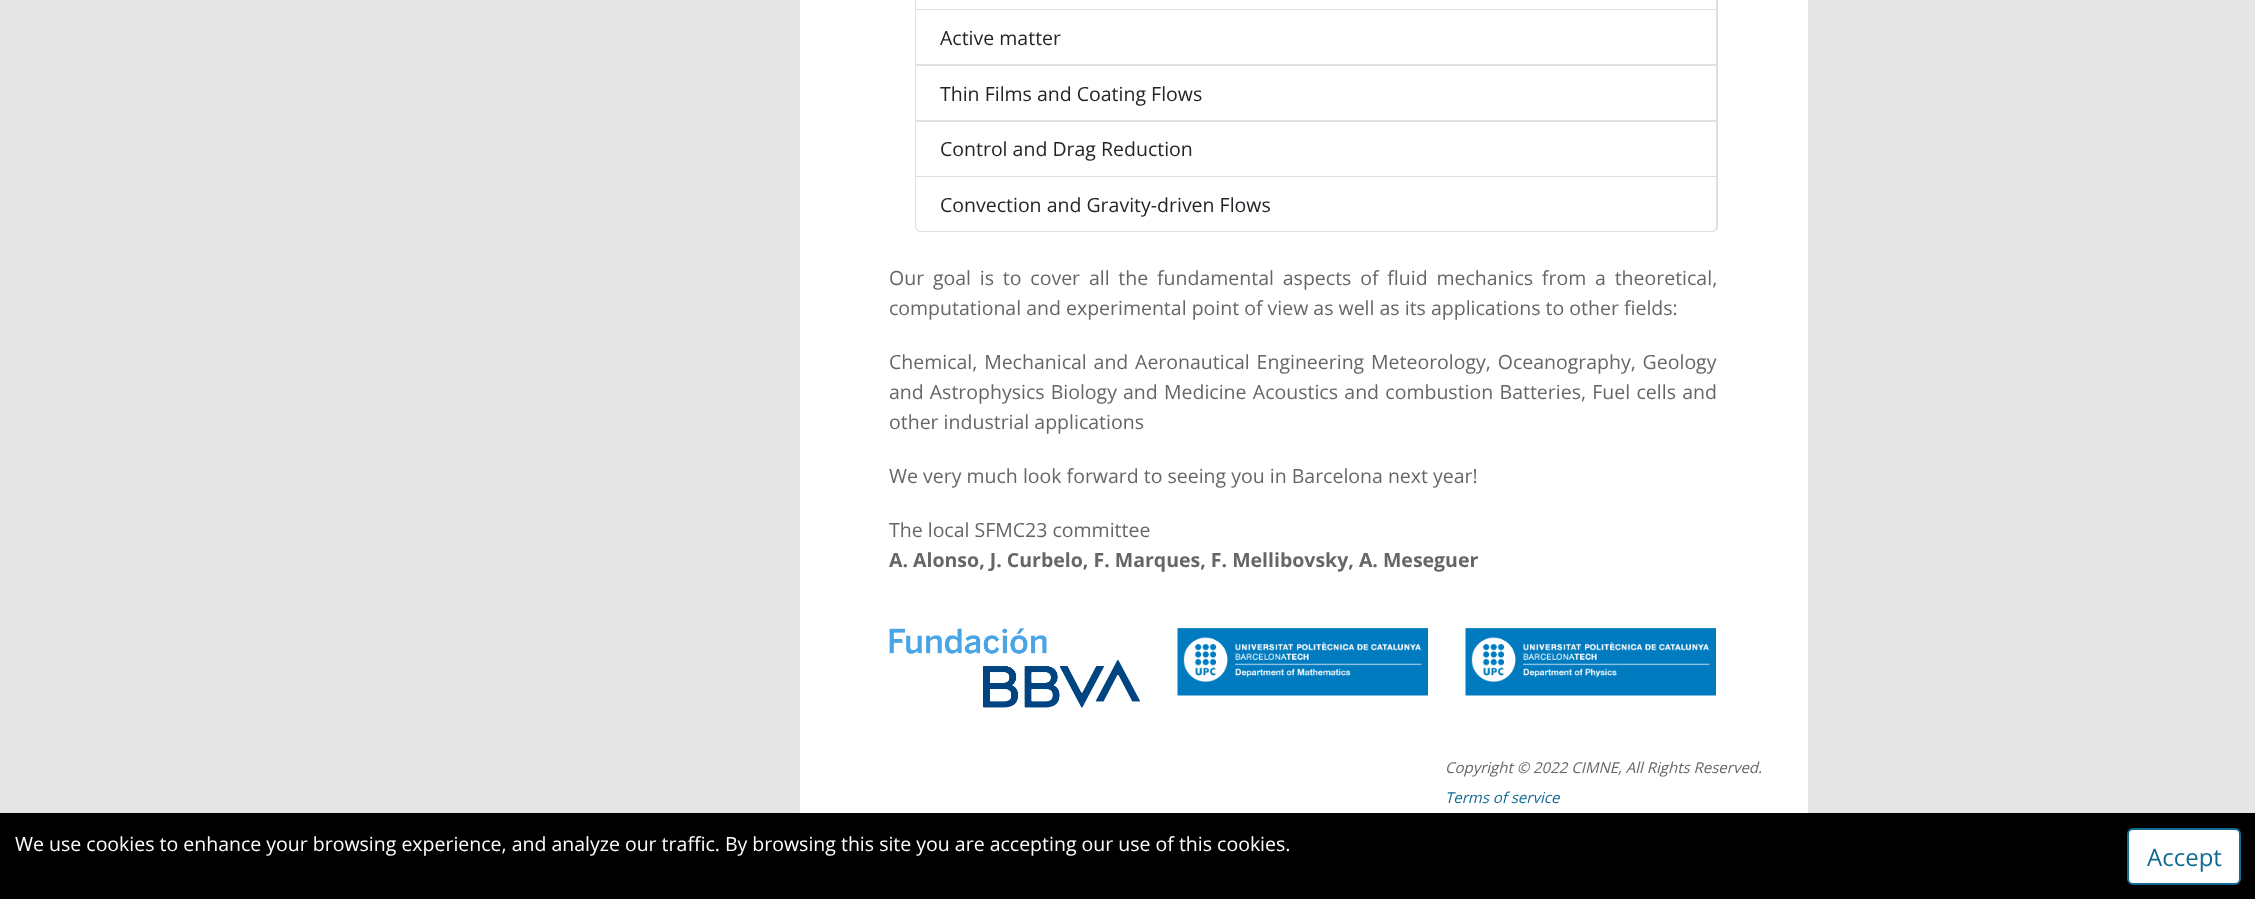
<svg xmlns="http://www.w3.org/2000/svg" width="2255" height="899">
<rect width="100%" height="100%" fill="#e5e5e5"/>
<rect x="800" width="1008" height="813" fill="#fff"/>
<path d="M1718-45v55l-2-1v-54z" fill="#dfdfdf"/>
<path d="M1718 10h-803l1-1h800z" fill="#0000001f"/>
<path d="M915 10v-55h1v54z" fill="#0000001f"/>
<path d="M1718 10v56l-2-2v-54z" fill="#dfdfdf"/>
<path d="M1718 66h-803l1-2h800z" fill="#0000001f"/>
<path d="M915 66v-56h1v54z" fill="#0000001f"/>
<text x="940" y="45" style="font-family:Open Sans;font-size:19.5px;fill:#212529">Active matter</text>
<path d="M1718 66v56l-2-2v-54z" fill="#dfdfdf"/>
<path d="M1718 122h-803l1-2h800z" fill="#0000001f"/>
<path d="M915 122v-56h1v54z" fill="#0000001f"/>
<text x="940" y="101" style="font-family:Open Sans;font-size:19.5px;fill:#212529">Thin Films and Coating Flows</text>
<path d="M1718 122v55l-2-1v-54z" fill="#dfdfdf"/>
<path d="M1718 177h-803l1-1h800z" fill="#0000001f"/>
<path d="M915 177v-55h1v54z" fill="#0000001f"/>
<text x="940" y="156" style="font-family:Open Sans;font-size:19.5px;fill:#212529">Control and Drag Reduction</text>
<path d="M915 177h803v49c0 4-3 6-6 6h-791c-3 0-6-2-6-6zm1 0h800v49c0 3-2 5-4 5h-791c-2 0-5-2-5-5z" fill="#dfdfdf" fill-rule="evenodd"/>
<text x="940" y="212" style="font-family:Open Sans;font-size:19.5px;fill:#212529">Convection and Gravity-driven Flows</text>
<text x="889" y="285" word-spacing="3.75" style="font-family:Open Sans;font-size:19.5px;fill:#666">Our goal is to cover all the fundamental aspects of fluid mechanics from a theoretical,</text>
<text x="889" y="315" style="font-family:Open Sans;font-size:19.5px;fill:#666">computational and experimental point of view as well as its applications to other fields:</text>
<text x="889" y="369" word-spacing="1.75" style="font-family:Open Sans;font-size:19.5px;fill:#666">Chemical, Mechanical and Aeronautical Engineering Meteorology, Oceanography, Geology</text>
<text x="889" y="399" word-spacing="1" style="font-family:Open Sans;font-size:19.5px;fill:#666">and Astrophysics Biology and</text>
<text x="1164" y="399" word-spacing="1.25" style="font-family:Open Sans;font-size:19.5px;fill:#666">Medicine Acoustics and combustion Batteries, Fuel cells and</text>
<text x="889" y="429" style="font-family:Open Sans;font-size:19.5px;fill:#666">other industrial applications</text>
<text x="889" y="483" style="font-family:Open Sans;font-size:19.5px;fill:#666">We very much look forward to seeing you in Barcelona next year!</text>
<text x="889" y="537" style="font-family:Open Sans;font-size:19.5px;fill:#666">The local SFMC23 committee</text>
<text x="889" y="567" style="font-family:Open Sans;font-size:19.5px;font-weight:bold;fill:#666">A. Alonso, J. Curbelo, F. Marques, F. Mellibovsky, A. Meseguer</text>
<image x="889" y="628" width="251" height="80" href="media/1.png"/>
<image x="1177" y="628" width="251" height="68" href="media/2.png"/>
<image x="1465" y="628" width="251" height="68" href="media/3.png"/>
<text x="1445" y="773" style="font-family:Open Sans;font-size:15px;font-style:italic;fill:#666">Copyright © 2022 CIMNE, All Rights Reserved.</text>
<text x="1445" y="803" style="font-family:Open Sans;font-size:15px;font-style:italic;fill:#116b92">Terms of service</text>
<image x="799" y="812" width="1009" height="1" href="media/4.png"/>
<rect y="813" width="2255" height="86" fill="#000"/>
<text x="15" y="851" style="font-family:Open Sans;font-size:19.5px;fill:#fff">We use cookies to enhance your browsing experience, and analyze our traffic. By browsing this site you are accepting our use of this cookies.</text>
<rect x="2128" y="829" width="112" height="55" rx="5" fill="#fff" stroke="#116b92" stroke-width="2"/>
<text x="2147" y="866" style="font-family:Open Sans;font-size:24px;fill:#116b92">Accept</text>
</svg>
